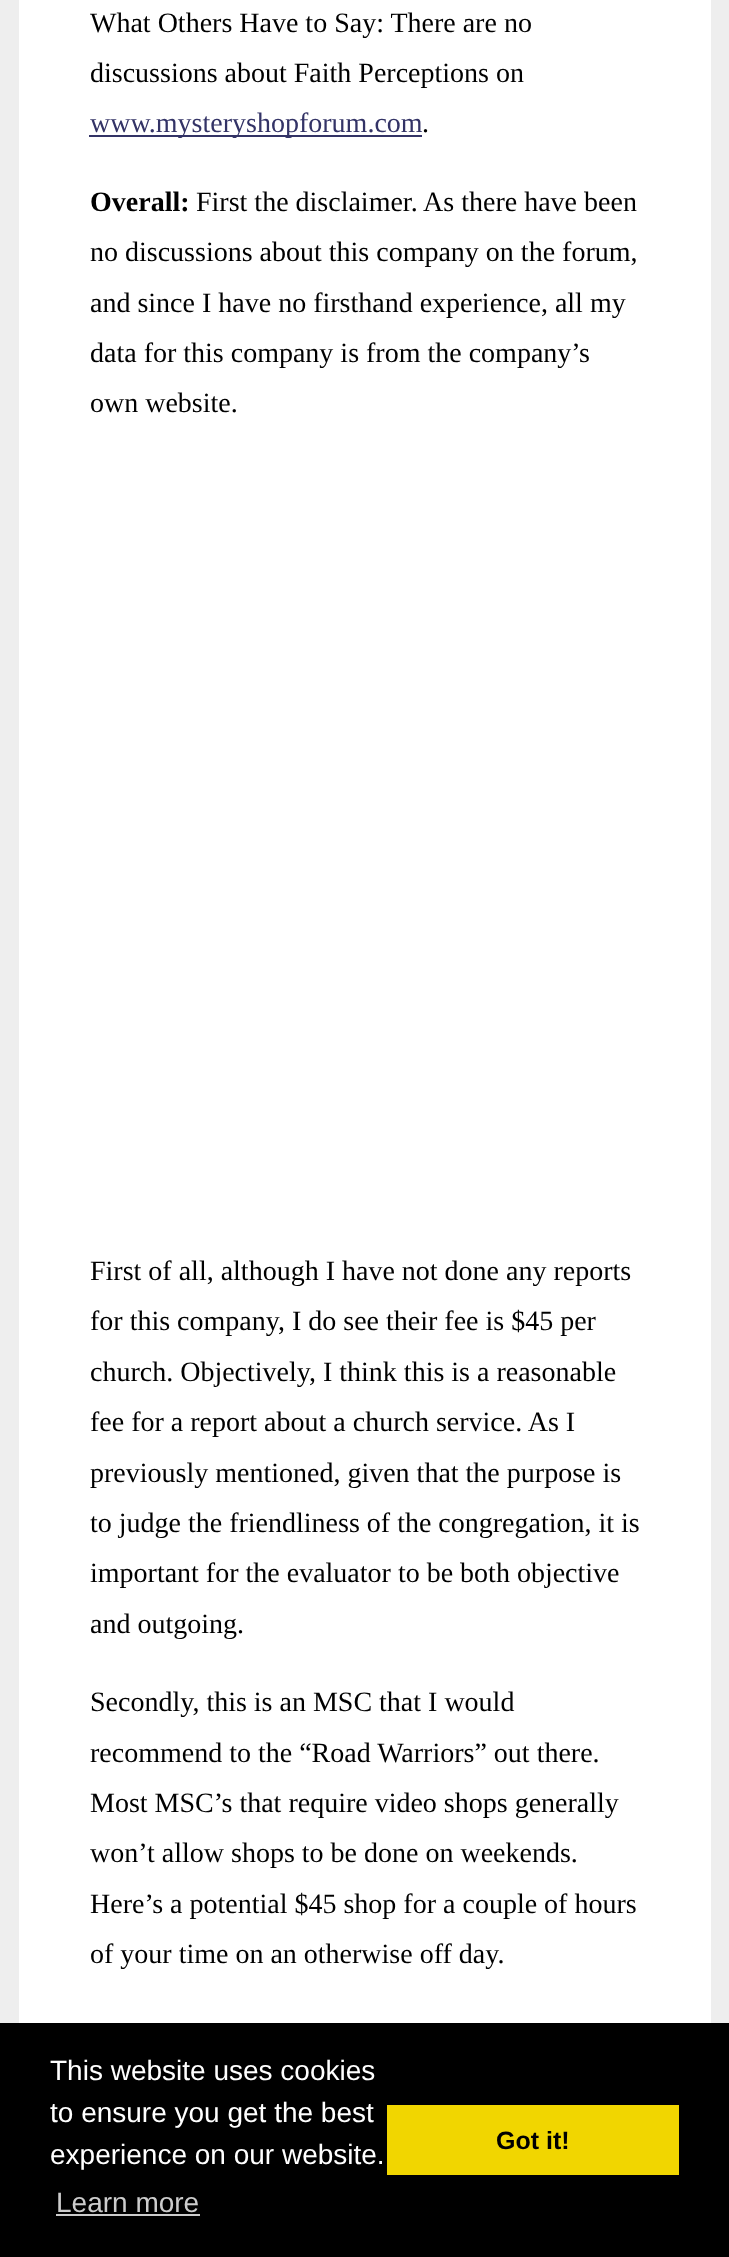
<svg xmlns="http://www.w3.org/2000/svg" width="729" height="2257">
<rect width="100%" height="100%" fill="#eee"/>
<rect x="19" width="692" height="2023" fill="#fff"/>
<text x="90" y="32" style="font-family:Liberation Serif;font-size:28px;fill:#000">What Others Have to Say: There are no</text>
<text x="90" y="82" style="font-family:Liberation Serif;font-size:28px;fill:#000">discussions about Faith Perceptions on</text>
<rect x="89" y="135" width="333" height="2" fill="#336"/>
<text x="90" y="132" style="font-family:Liberation Serif;font-size:28px;fill:#336">www.mysteryshopforum.com</text>
<text x="422" y="132" style="font-family:Liberation Serif;font-size:28px;fill:#000">.</text>
<text x="90" y="211" style="font-family:Liberation Serif;font-size:28px;font-weight:bold;fill:#000">Overall:</text>
<text x="196" y="211" style="font-family:Liberation Serif;font-size:28px;fill:#000">First the disclaimer. As there have been</text>
<text x="90" y="261" style="font-family:Liberation Serif;font-size:28px;fill:#000">no discussions about this company on the forum,</text>
<text x="90" y="312" style="font-family:Liberation Serif;font-size:28px;fill:#000">and since I have no firsthand experience, all my</text>
<text x="90" y="362" style="font-family:Liberation Serif;font-size:28px;fill:#000">data for this company is from the company’s</text>
<text x="90" y="412" style="font-family:Liberation Serif;font-size:28px;fill:#000">own website.</text>
<text x="90" y="1280" style="font-family:Liberation Serif;font-size:28px;fill:#000">First of all, although I have not done any reports</text>
<text x="90" y="1330" style="font-family:Liberation Serif;font-size:28px;fill:#000">for this company, I do see their fee is $45 per</text>
<text x="90" y="1381" style="font-family:Liberation Serif;font-size:28px;fill:#000">church. Objectively, I think this is a reasonable</text>
<text x="90" y="1431" style="font-family:Liberation Serif;font-size:28px;fill:#000">fee for a report about a church service. As I</text>
<text x="90" y="1482" style="font-family:Liberation Serif;font-size:28px;fill:#000">previously mentioned, given that the purpose is</text>
<text x="90" y="1532" style="font-family:Liberation Serif;font-size:28px;fill:#000">to judge the friendliness of the congregation, it is</text>
<text x="90" y="1582" style="font-family:Liberation Serif;font-size:28px;fill:#000">important for the evaluator to be both objective</text>
<text x="90" y="1633" style="font-family:Liberation Serif;font-size:28px;fill:#000">and outgoing.</text>
<text x="90" y="1711" style="font-family:Liberation Serif;font-size:28px;fill:#000">Secondly, this is an MSC that I would</text>
<text x="90" y="1762" style="font-family:Liberation Serif;font-size:28px;fill:#000">recommend to the “Road Warriors” out there.</text>
<text x="90" y="1812" style="font-family:Liberation Serif;font-size:28px;fill:#000">Most MSC’s that require video shops generally</text>
<text x="90" y="1862" style="font-family:Liberation Serif;font-size:28px;fill:#000">won’t allow shops to be done on weekends.</text>
<text x="90" y="1913" style="font-family:Liberation Serif;font-size:28px;fill:#000">Here’s a potential $45 shop for a couple of hours</text>
<text x="90" y="1963" style="font-family:Liberation Serif;font-size:28px;fill:#000">of your time on an otherwise off day.</text>
<rect y="2023" width="729" height="234" fill="#000"/>
<text x="50" y="2080" style="font-family:Liberation Sans;font-size:28px;fill:#fff">This website uses cookies</text>
<text x="50" y="2122" style="font-family:Liberation Sans;font-size:28px;fill:#fff">to ensure you get the best</text>
<text x="50" y="2164" style="font-family:Liberation Sans;font-size:28px;fill:#fff">experience on our website.</text>
<text x="56" y="2212" style="font-family:Liberation Sans;font-size:28px;fill:#ccc">Learn more</text>
<rect x="56" y="2214" width="144" height="2" fill="#ccc"/>
<rect x="387" y="2105" width="292" height="70" fill="#f1d600"/>
<text x="496" y="2149" style="font-family:Liberation Sans;font-size:25px;font-weight:bold;fill:#000">Got it!</text>
</svg>
